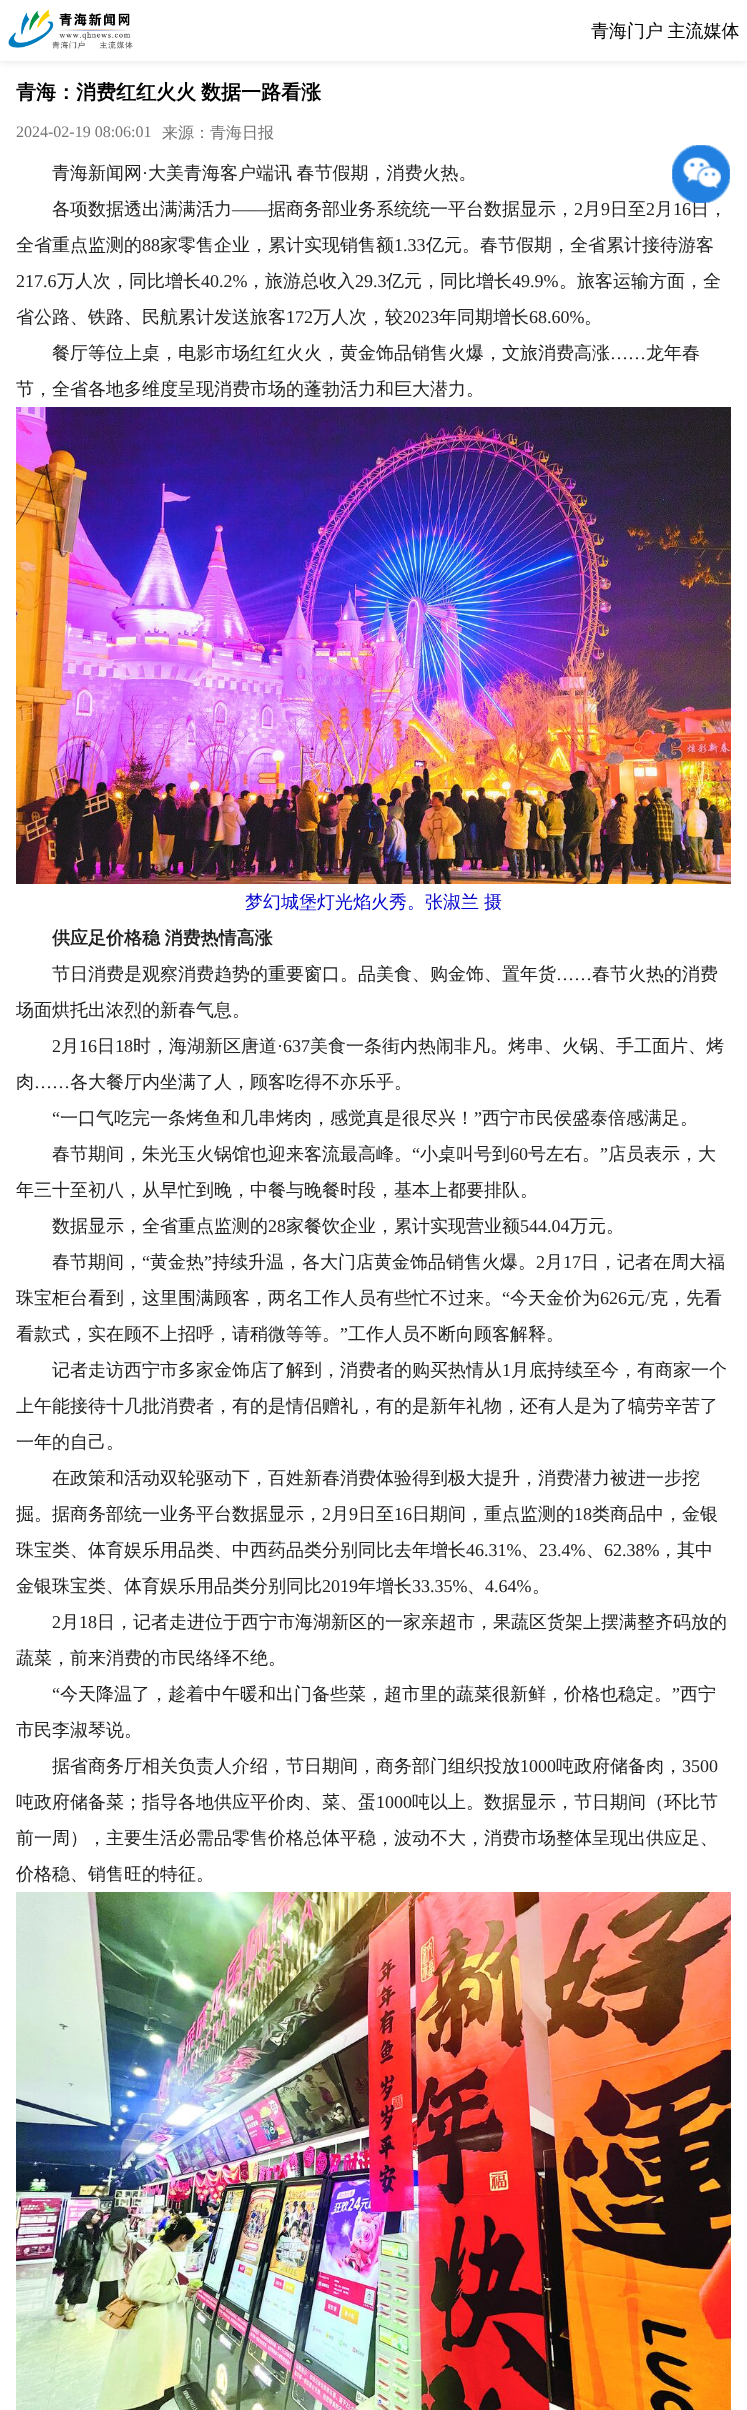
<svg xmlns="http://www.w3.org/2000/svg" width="747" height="2410">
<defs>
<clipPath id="clip1"><rect x="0" y="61" width="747" height="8"/></clipPath>
</defs>
<rect width="100%" height="100%" fill="#fff"/>
<g clip-path="url(#clip1)">
<rect width="747" height="61" fill="#dedede" filter="blur(4px)"/>
</g>
<image x="8" y="9" width="125" height="40" href="media/1.png"/>
<text x="591" y="37" word-spacing="-1" style="font-family:WenQuanYi Zen Hei;font-size:18px;font-weight:500;fill:#000">青海门户 主流媒体</text>
<text x="16" y="99" word-spacing="-1" style="font-family:WenQuanYi Zen Hei;font-size:20px;font-weight:bold;fill:#000">青海：消费红红火火 数据一路看涨</text>
<text x="16" y="137" style="font-family:Liberation Serif;font-size:16px;fill:#747474">2024-02-19 08:06:01</text>
<text x="162" y="138" style="font-family:WenQuanYi Zen Hei;font-size:16px;font-weight:500;fill:#747474">来源：青海日报</text>
<text x="52" y="179" style="font-family:WenQuanYi Zen Hei;font-size:18px;font-weight:500;fill:#212121">青海新闻网</text>
<text x="142" y="179" style="font-family:Liberation Serif;font-size:18px;fill:#212121">·</text>
<text x="148" y="179" word-spacing="-1" style="font-family:WenQuanYi Zen Hei;font-size:18px;font-weight:500;fill:#212121">大美青海客户端讯 春节假期，消费火热。</text>
<text x="52" y="215" style="font-family:WenQuanYi Zen Hei;font-size:18px;font-weight:500;fill:#212121">各项数据透出满满活力</text>
<text x="232" y="215" style="font-family:Liberation Serif;font-size:18px;fill:#212121">——</text>
<text x="268" y="215" style="font-family:WenQuanYi Zen Hei;font-size:18px;font-weight:500;fill:#212121">据商务部业务系统统一平台数据显示，</text>
<text x="574" y="215" style="font-family:Liberation Serif;font-size:18px;fill:#212121">2</text>
<text x="583" y="215" style="font-family:WenQuanYi Zen Hei;font-size:18px;font-weight:500;fill:#212121">月</text>
<text x="601" y="215" style="font-family:Liberation Serif;font-size:18px;fill:#212121">9</text>
<text x="610" y="215" style="font-family:WenQuanYi Zen Hei;font-size:18px;font-weight:500;fill:#212121">日至</text>
<text x="646" y="215" style="font-family:Liberation Serif;font-size:18px;fill:#212121">2</text>
<text x="655" y="215" style="font-family:WenQuanYi Zen Hei;font-size:18px;font-weight:500;fill:#212121">月</text>
<text x="673" y="215" style="font-family:Liberation Serif;font-size:18px;fill:#212121">16</text>
<text x="691" y="215" style="font-family:WenQuanYi Zen Hei;font-size:18px;font-weight:500;fill:#212121">日，</text>
<text x="16" y="251" style="font-family:WenQuanYi Zen Hei;font-size:18px;font-weight:500;fill:#212121">全省重点监测的</text>
<text x="142" y="251" style="font-family:Liberation Serif;font-size:18px;fill:#212121">88</text>
<text x="160" y="251" style="font-family:WenQuanYi Zen Hei;font-size:18px;font-weight:500;fill:#212121">家零售企业，累计实现销售额</text>
<text x="394" y="251" style="font-family:Liberation Serif;font-size:18px;fill:#212121">1.33</text>
<text x="426" y="251" style="font-family:WenQuanYi Zen Hei;font-size:18px;font-weight:500;fill:#212121">亿元。春节假期，全省累计接待游客</text>
<text x="16" y="287" style="font-family:Liberation Serif;font-size:18px;fill:#212121">217.6</text>
<text x="57" y="287" style="font-family:WenQuanYi Zen Hei;font-size:18px;font-weight:500;fill:#212121">万人次，同比增长</text>
<text x="201" y="287" style="font-family:Liberation Serif;font-size:18px;fill:#212121">40.2%</text>
<text x="247" y="287" style="font-family:WenQuanYi Zen Hei;font-size:18px;font-weight:500;fill:#212121">，旅游总收入</text>
<text x="355" y="287" style="font-family:Liberation Serif;font-size:18px;fill:#212121">29.3</text>
<text x="386" y="287" style="font-family:WenQuanYi Zen Hei;font-size:18px;font-weight:500;fill:#212121">亿元，同比增长</text>
<text x="512" y="287" style="font-family:Liberation Serif;font-size:18px;fill:#212121">49.9%</text>
<text x="559" y="287" style="font-family:WenQuanYi Zen Hei;font-size:18px;font-weight:500;fill:#212121">。旅客运输方面，全</text>
<text x="16" y="323" style="font-family:WenQuanYi Zen Hei;font-size:18px;font-weight:500;fill:#212121">省公路、铁路、民航累计发送旅客</text>
<text x="286" y="323" style="font-family:Liberation Serif;font-size:18px;fill:#212121">172</text>
<text x="313" y="323" style="font-family:WenQuanYi Zen Hei;font-size:18px;font-weight:500;fill:#212121">万人次，较</text>
<text x="403" y="323" style="font-family:Liberation Serif;font-size:18px;fill:#212121">2023</text>
<text x="439" y="323" style="font-family:WenQuanYi Zen Hei;font-size:18px;font-weight:500;fill:#212121">年同期增长</text>
<text x="529" y="323" style="font-family:Liberation Serif;font-size:18px;fill:#212121">68.60%</text>
<text x="584" y="323" style="font-family:WenQuanYi Zen Hei;font-size:18px;font-weight:500;fill:#212121">。</text>
<text x="52" y="359" style="font-family:WenQuanYi Zen Hei;font-size:18px;font-weight:500;fill:#212121">餐厅等位上桌，电影市场红红火火，黄金饰品销售火爆，文旅消费高涨</text>
<text x="610" y="359" style="font-family:Liberation Serif;font-size:18px;fill:#212121">……</text>
<text x="646" y="359" style="font-family:WenQuanYi Zen Hei;font-size:18px;font-weight:500;fill:#212121">龙年春</text>
<text x="16" y="395" style="font-family:WenQuanYi Zen Hei;font-size:18px;font-weight:500;fill:#212121">节，全省各地多维度呈现消费市场的蓬勃活力和巨大潜力。</text>
<image x="16" y="407" width="715" height="477" href="media/2.png"/>
<text x="245" y="908" style="font-family:WenQuanYi Zen Hei;font-size:18px;font-weight:500;fill:#0000cd">梦幻城堡灯光焰火秀。张淑兰</text>
<text x="484" y="908" style="font-family:WenQuanYi Zen Hei;font-size:18px;font-weight:500;fill:#0000cd">摄</text>
<text x="52" y="944" word-spacing="-1" style="font-family:WenQuanYi Zen Hei;font-size:18px;font-weight:bold;fill:#212121">供应足价格稳 消费热情高涨</text>
<text x="52" y="980" style="font-family:WenQuanYi Zen Hei;font-size:18px;font-weight:500;fill:#212121">节日消费是观察消费趋势的重要窗口。品美食、购金饰、置年货</text>
<text x="556" y="980" style="font-family:Liberation Serif;font-size:18px;fill:#212121">……</text>
<text x="592" y="980" style="font-family:WenQuanYi Zen Hei;font-size:18px;font-weight:500;fill:#212121">春节火热的消费</text>
<text x="16" y="1016" style="font-family:WenQuanYi Zen Hei;font-size:18px;font-weight:500;fill:#212121">场面烘托出浓烈的新春气息。</text>
<text x="52" y="1052" style="font-family:Liberation Serif;font-size:18px;fill:#212121">2</text>
<text x="61" y="1052" style="font-family:WenQuanYi Zen Hei;font-size:18px;font-weight:500;fill:#212121">月</text>
<text x="79" y="1052" style="font-family:Liberation Serif;font-size:18px;fill:#212121">16</text>
<text x="97" y="1052" style="font-family:WenQuanYi Zen Hei;font-size:18px;font-weight:500;fill:#212121">日</text>
<text x="115" y="1052" style="font-family:Liberation Serif;font-size:18px;fill:#212121">18</text>
<text x="133" y="1052" style="font-family:WenQuanYi Zen Hei;font-size:18px;font-weight:500;fill:#212121">时，海湖新区唐道</text>
<text x="277" y="1052" style="font-family:Liberation Serif;font-size:18px;fill:#212121">·637</text>
<text x="310" y="1052" style="font-family:WenQuanYi Zen Hei;font-size:18px;font-weight:500;fill:#212121">美食一条街内热闹非凡。烤串、火锅、手工面片、烤</text>
<text x="16" y="1088" style="font-family:WenQuanYi Zen Hei;font-size:18px;font-weight:500;fill:#212121">肉</text>
<text x="34" y="1088" style="font-family:Liberation Serif;font-size:18px;fill:#212121">……</text>
<text x="70" y="1088" style="font-family:WenQuanYi Zen Hei;font-size:18px;font-weight:500;fill:#212121">各大餐厅内坐满了人，顾客吃得不亦乐乎。</text>
<text x="52" y="1124" style="font-family:Liberation Serif;font-size:18px;fill:#212121">“</text>
<text x="60" y="1124" style="font-family:WenQuanYi Zen Hei;font-size:18px;font-weight:500;fill:#212121">一口气吃完一条烤鱼和几串烤肉，感觉真是很尽兴！</text>
<text x="474" y="1124" style="font-family:Liberation Serif;font-size:18px;fill:#212121">”</text>
<text x="482" y="1124" style="font-family:WenQuanYi Zen Hei;font-size:18px;font-weight:500;fill:#212121">西宁市民侯盛泰倍感满足。</text>
<text x="52" y="1160" style="font-family:WenQuanYi Zen Hei;font-size:18px;font-weight:500;fill:#212121">春节期间，朱光玉火锅馆也迎来客流最高峰。</text>
<text x="412" y="1160" style="font-family:Liberation Serif;font-size:18px;fill:#212121">“</text>
<text x="420" y="1160" style="font-family:WenQuanYi Zen Hei;font-size:18px;font-weight:500;fill:#212121">小桌叫号到</text>
<text x="510" y="1160" style="font-family:Liberation Serif;font-size:18px;fill:#212121">60</text>
<text x="528" y="1160" style="font-family:WenQuanYi Zen Hei;font-size:18px;font-weight:500;fill:#212121">号左右。</text>
<text x="600" y="1160" style="font-family:Liberation Serif;font-size:18px;fill:#212121">”</text>
<text x="608" y="1160" style="font-family:WenQuanYi Zen Hei;font-size:18px;font-weight:500;fill:#212121">店员表示，大</text>
<text x="16" y="1196" style="font-family:WenQuanYi Zen Hei;font-size:18px;font-weight:500;fill:#212121">年三十至初八，从早忙到晚，中餐与晚餐时段，基本上都要排队。</text>
<text x="52" y="1232" style="font-family:WenQuanYi Zen Hei;font-size:18px;font-weight:500;fill:#212121">数据显示，全省重点监测的</text>
<text x="268" y="1232" style="font-family:Liberation Serif;font-size:18px;fill:#212121">28</text>
<text x="286" y="1232" style="font-family:WenQuanYi Zen Hei;font-size:18px;font-weight:500;fill:#212121">家餐饮企业，累计实现营业额</text>
<text x="520" y="1232" style="font-family:Liberation Serif;font-size:18px;fill:#212121">544.04</text>
<text x="570" y="1232" style="font-family:WenQuanYi Zen Hei;font-size:18px;font-weight:500;fill:#212121">万元。</text>
<text x="52" y="1268" style="font-family:WenQuanYi Zen Hei;font-size:18px;font-weight:500;fill:#212121">春节期间，</text>
<text x="142" y="1268" style="font-family:Liberation Serif;font-size:18px;fill:#212121">“</text>
<text x="150" y="1268" style="font-family:WenQuanYi Zen Hei;font-size:18px;font-weight:500;fill:#212121">黄金热</text>
<text x="204" y="1268" style="font-family:Liberation Serif;font-size:18px;fill:#212121">”</text>
<text x="212" y="1268" style="font-family:WenQuanYi Zen Hei;font-size:18px;font-weight:500;fill:#212121">持续升温，各大门店黄金饰品销售火爆。</text>
<text x="536" y="1268" style="font-family:Liberation Serif;font-size:18px;fill:#212121">2</text>
<text x="545" y="1268" style="font-family:WenQuanYi Zen Hei;font-size:18px;font-weight:500;fill:#212121">月</text>
<text x="563" y="1268" style="font-family:Liberation Serif;font-size:18px;fill:#212121">17</text>
<text x="581" y="1268" style="font-family:WenQuanYi Zen Hei;font-size:18px;font-weight:500;fill:#212121">日，记者在周大福</text>
<text x="16" y="1304" style="font-family:WenQuanYi Zen Hei;font-size:18px;font-weight:500;fill:#212121">珠宝柜台看到，这里围满顾客，两名工作人员有些忙不过来。</text>
<text x="502" y="1304" style="font-family:Liberation Serif;font-size:18px;fill:#212121">“</text>
<text x="510" y="1304" style="font-family:WenQuanYi Zen Hei;font-size:18px;font-weight:500;fill:#212121">今天金价为</text>
<text x="600" y="1304" style="font-family:Liberation Serif;font-size:18px;fill:#212121">626</text>
<text x="627" y="1304" style="font-family:WenQuanYi Zen Hei;font-size:18px;font-weight:500;fill:#212121">元</text>
<text x="645" y="1304" style="font-family:Liberation Serif;font-size:18px;fill:#212121">/</text>
<text x="650" y="1304" style="font-family:WenQuanYi Zen Hei;font-size:18px;font-weight:500;fill:#212121">克，先看</text>
<text x="16" y="1340" style="font-family:WenQuanYi Zen Hei;font-size:18px;font-weight:500;fill:#212121">看款式，实在顾不上招呼，请稍微等等。</text>
<text x="340" y="1340" style="font-family:Liberation Serif;font-size:18px;fill:#212121">”</text>
<text x="348" y="1340" style="font-family:WenQuanYi Zen Hei;font-size:18px;font-weight:500;fill:#212121">工作人员不断向顾客解释。</text>
<text x="52" y="1376" style="font-family:WenQuanYi Zen Hei;font-size:18px;font-weight:500;fill:#212121">记者走访西宁市多家金饰店了解到，消费者的购买热情从</text>
<text x="502" y="1376" style="font-family:Liberation Serif;font-size:18px;fill:#212121">1</text>
<text x="511" y="1376" style="font-family:WenQuanYi Zen Hei;font-size:18px;font-weight:500;fill:#212121">月底持续至今，有商家一个</text>
<text x="16" y="1412" style="font-family:WenQuanYi Zen Hei;font-size:18px;font-weight:500;fill:#212121">上午能接待十几批消费者，有的是情侣赠礼，有的是新年礼物，还有人是为了犒劳辛苦了</text>
<text x="16" y="1448" style="font-family:WenQuanYi Zen Hei;font-size:18px;font-weight:500;fill:#212121">一年的自己。</text>
<text x="52" y="1484" style="font-family:WenQuanYi Zen Hei;font-size:18px;font-weight:500;fill:#212121">在政策和活动双轮驱动下，百姓新春消费体验得到极大提升，消费潜力被进一步挖</text>
<text x="16" y="1520" style="font-family:WenQuanYi Zen Hei;font-size:18px;font-weight:500;fill:#212121">掘。据商务部统一业务平台数据显示，</text>
<text x="322" y="1520" style="font-family:Liberation Serif;font-size:18px;fill:#212121">2</text>
<text x="331" y="1520" style="font-family:WenQuanYi Zen Hei;font-size:18px;font-weight:500;fill:#212121">月</text>
<text x="349" y="1520" style="font-family:Liberation Serif;font-size:18px;fill:#212121">9</text>
<text x="358" y="1520" style="font-family:WenQuanYi Zen Hei;font-size:18px;font-weight:500;fill:#212121">日至</text>
<text x="394" y="1520" style="font-family:Liberation Serif;font-size:18px;fill:#212121">16</text>
<text x="412" y="1520" style="font-family:WenQuanYi Zen Hei;font-size:18px;font-weight:500;fill:#212121">日期间，重点监测的</text>
<text x="574" y="1520" style="font-family:Liberation Serif;font-size:18px;fill:#212121">18</text>
<text x="592" y="1520" style="font-family:WenQuanYi Zen Hei;font-size:18px;font-weight:500;fill:#212121">类商品中，金银</text>
<text x="16" y="1556" style="font-family:WenQuanYi Zen Hei;font-size:18px;font-weight:500;fill:#212121">珠宝类、体育娱乐用品类、中西药品类分别同比去年增长</text>
<text x="466" y="1556" style="font-family:Liberation Serif;font-size:18px;fill:#212121">46.31%</text>
<text x="521" y="1556" style="font-family:WenQuanYi Zen Hei;font-size:18px;font-weight:500;fill:#212121">、</text>
<text x="539" y="1556" style="font-family:Liberation Serif;font-size:18px;fill:#212121">23.4%</text>
<text x="586" y="1556" style="font-family:WenQuanYi Zen Hei;font-size:18px;font-weight:500;fill:#212121">、</text>
<text x="604" y="1556" style="font-family:Liberation Serif;font-size:18px;fill:#212121">62.38%</text>
<text x="659" y="1556" style="font-family:WenQuanYi Zen Hei;font-size:18px;font-weight:500;fill:#212121">，其中</text>
<text x="16" y="1592" style="font-family:WenQuanYi Zen Hei;font-size:18px;font-weight:500;fill:#212121">金银珠宝类、体育娱乐用品类分别同比</text>
<text x="322" y="1592" style="font-family:Liberation Serif;font-size:18px;fill:#212121">2019</text>
<text x="358" y="1592" style="font-family:WenQuanYi Zen Hei;font-size:18px;font-weight:500;fill:#212121">年增长</text>
<text x="412" y="1592" style="font-family:Liberation Serif;font-size:18px;fill:#212121">33.35%</text>
<text x="467" y="1592" style="font-family:WenQuanYi Zen Hei;font-size:18px;font-weight:500;fill:#212121">、</text>
<text x="485" y="1592" style="font-family:Liberation Serif;font-size:18px;fill:#212121">4.64%</text>
<text x="532" y="1592" style="font-family:WenQuanYi Zen Hei;font-size:18px;font-weight:500;fill:#212121">。</text>
<text x="52" y="1628" style="font-family:Liberation Serif;font-size:18px;fill:#212121">2</text>
<text x="61" y="1628" style="font-family:WenQuanYi Zen Hei;font-size:18px;font-weight:500;fill:#212121">月</text>
<text x="79" y="1628" style="font-family:Liberation Serif;font-size:18px;fill:#212121">18</text>
<text x="97" y="1628" style="font-family:WenQuanYi Zen Hei;font-size:18px;font-weight:500;fill:#212121">日，记者走进位于西宁市海湖新区的一家亲超市，果蔬区货架上摆满整齐码放的</text>
<text x="16" y="1664" style="font-family:WenQuanYi Zen Hei;font-size:18px;font-weight:500;fill:#212121">蔬菜，前来消费的市民络绎不绝。</text>
<text x="52" y="1700" style="font-family:Liberation Serif;font-size:18px;fill:#212121">“</text>
<text x="60" y="1700" style="font-family:WenQuanYi Zen Hei;font-size:18px;font-weight:500;fill:#212121">今天降温了，趁着中午暖和出门备些菜，超市里的蔬菜很新鲜，价格也稳定。</text>
<text x="672" y="1700" style="font-family:Liberation Serif;font-size:18px;fill:#212121">”</text>
<text x="680" y="1700" style="font-family:WenQuanYi Zen Hei;font-size:18px;font-weight:500;fill:#212121">西宁</text>
<text x="16" y="1736" style="font-family:WenQuanYi Zen Hei;font-size:18px;font-weight:500;fill:#212121">市民李淑琴说。</text>
<text x="52" y="1772" style="font-family:WenQuanYi Zen Hei;font-size:18px;font-weight:500;fill:#212121">据省商务厅相关负责人介绍，节日期间，商务部门组织投放</text>
<text x="520" y="1772" style="font-family:Liberation Serif;font-size:18px;fill:#212121">1000</text>
<text x="556" y="1772" style="font-family:WenQuanYi Zen Hei;font-size:18px;font-weight:500;fill:#212121">吨政府储备肉，</text>
<text x="682" y="1772" style="font-family:Liberation Serif;font-size:18px;fill:#212121">3500</text>
<text x="16" y="1808" style="font-family:WenQuanYi Zen Hei;font-size:18px;font-weight:500;fill:#212121">吨政府储备菜；指导各地供应平价肉、菜、蛋</text>
<text x="376" y="1808" style="font-family:Liberation Serif;font-size:18px;fill:#212121">1000</text>
<text x="412" y="1808" style="font-family:WenQuanYi Zen Hei;font-size:18px;font-weight:500;fill:#212121">吨以上。数据显示，节日期间（环比节</text>
<text x="16" y="1844" style="font-family:WenQuanYi Zen Hei;font-size:18px;font-weight:500;fill:#212121">前一周），主要生活必需品零售价格总体平稳，波动不大，消费市场整体呈现出供应足、</text>
<text x="16" y="1880" style="font-family:WenQuanYi Zen Hei;font-size:18px;font-weight:500;fill:#212121">价格稳、销售旺的特征。</text>
<image x="16" y="1892" width="715" height="518" href="media/3.png"/>
<image x="672" y="145" width="58" height="58" href="media/4.png"/>
</svg>
